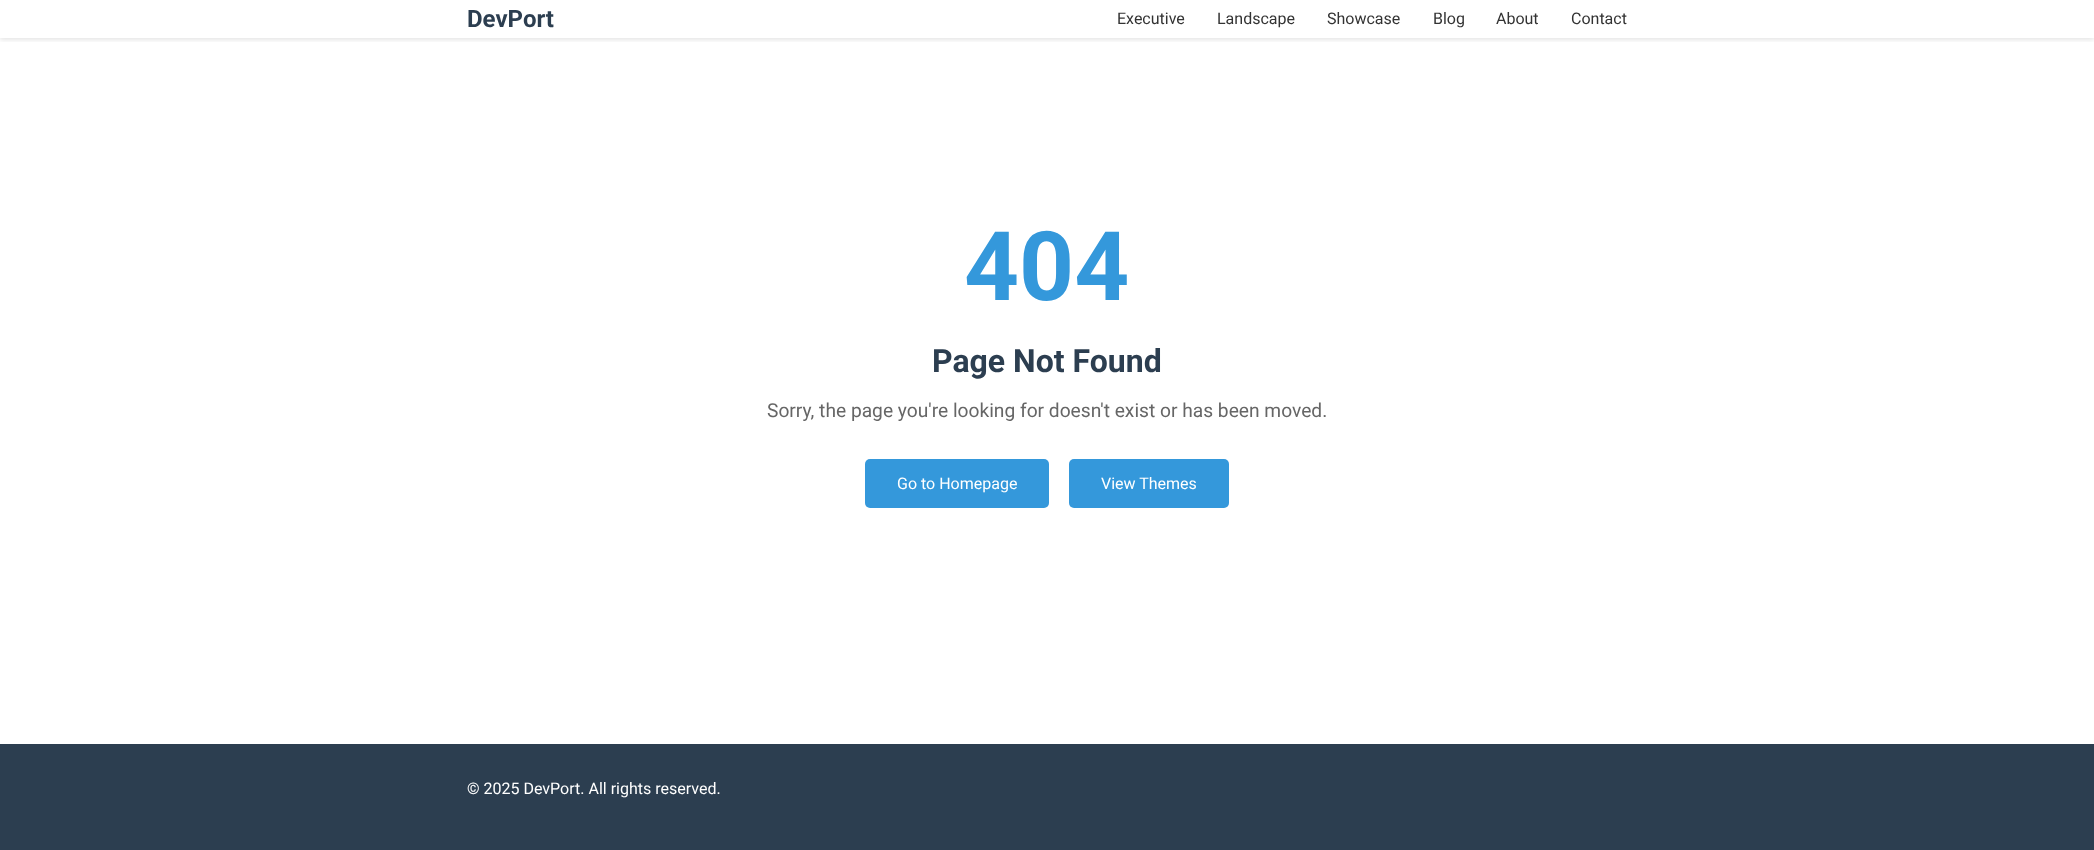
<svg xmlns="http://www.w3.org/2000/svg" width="2094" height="850">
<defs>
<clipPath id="clip1"><rect x="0" y="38" width="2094" height="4"/></clipPath>
</defs>
<rect width="100%" height="100%" fill="#fff"/>
<g clip-path="url(#clip1)">
<rect y="2" width="2094" height="38" fill="#0000001a" filter="blur(2.5px)"/>
</g>
<text x="467" y="27" style="font-family:Roboto;font-size:24px;font-weight:bold;fill:#2c3e50">DevPort</text>
<text x="1117" y="24" style="font-family:Roboto;font-size:16px;fill:#333">Executive</text>
<text x="1217" y="24" style="font-family:Roboto;font-size:16px;fill:#333">Landscape</text>
<text x="1327" y="24" style="font-family:Roboto;font-size:16px;fill:#333">Showcase</text>
<text x="1433" y="24" style="font-family:Roboto;font-size:16px;fill:#333">Blog</text>
<text x="1496" y="24" style="font-family:Roboto;font-size:16px;fill:#333">About</text>
<text x="1571" y="24" style="font-family:Roboto;font-size:16px;fill:#333">Contact</text>
<text x="964" y="300" style="font-family:Roboto;font-size:96px;font-weight:bold;fill:#3498db">404</text>
<text x="932" y="372" style="font-family:Roboto;font-size:32px;font-weight:bold;fill:#2c3e50">Page Not Found</text>
<text x="767" y="417" style="font-family:Roboto;font-size:19.2px;fill:#666">Sorry, the page you're looking for doesn't exist or has been moved.</text>
<rect x="865" y="459" width="184" height="49" rx="5" fill="#3498db"/>
<text x="897" y="489" style="font-family:Roboto;font-size:16px;fill:#fff">Go to Homepage</text>
<rect x="1069" y="459" width="160" height="49" rx="5" fill="#3498db"/>
<text x="1101" y="489" style="font-family:Roboto;font-size:16px;fill:#fff">View Themes</text>
<rect y="744" width="2094" height="106" fill="#2c3e50"/>
<text x="467" y="794" style="font-family:Roboto;font-size:16px;fill:#fff">© 2025 DevPort. All rights reserved.</text>
</svg>
